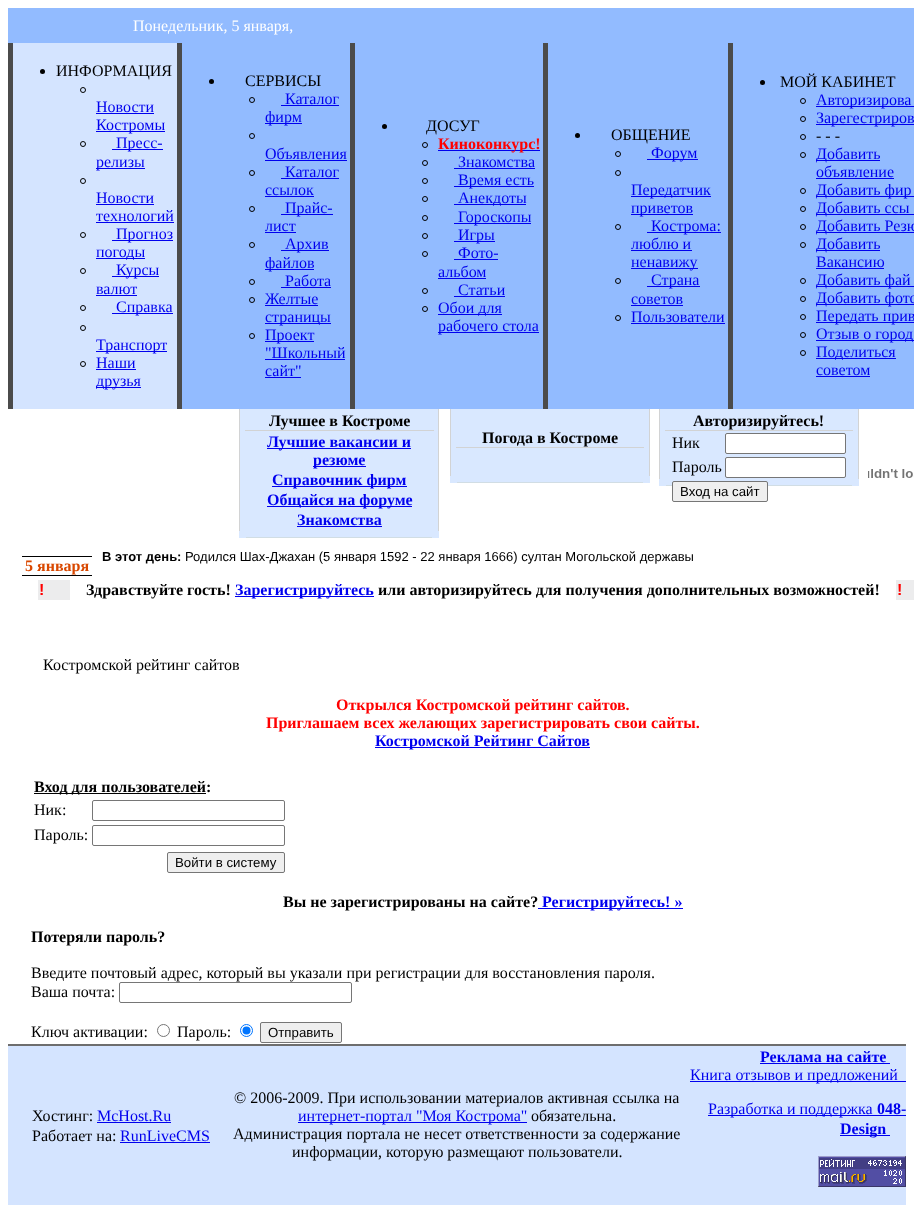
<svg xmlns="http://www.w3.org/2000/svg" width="914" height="1214">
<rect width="100%" height="100%" fill="#fff"/>
<rect x="8" y="8" width="906" height="35" fill="#92bbff"/>
<text x="133" y="31" style="font-family:Liberation Serif;font-size:16px;fill:#fff">Понедельник, 5 января,</text>
<rect x="8" y="43" width="5" height="366" fill="#4b4b4b"/>
<rect x="13" y="43" width="164" height="366" fill="#d4e4ff"/>
<circle cx="42.5" cy="71.5" r="2.5" fill="#000"/>
<text x="56" y="76" style="font-family:Liberation Serif;font-size:16px;fill:#000">ИНФОРМАЦИЯ</text>
<circle cx="83" cy="90" r="2.5" fill="none" stroke="#000"/>
<text x="96" y="112" style="font-family:Liberation Serif;font-size:16px;fill:#00e">Новости</text>
<rect x="96" y="113" width="58" height="1" fill="#00e"/>
<rect x="96" y="131" width="69" height="1" fill="#00e"/>
<text x="96" y="130" style="font-family:Liberation Serif;font-size:16px;fill:#00e">Костромы</text>
<circle cx="83" cy="144" r="2.5" fill="none" stroke="#000"/>
<rect x="112" y="149" width="51" height="1" fill="#00e"/>
<text x="116" y="148" style="font-family:Liberation Serif;font-size:16px;fill:#00e">Пресс-</text>
<rect x="96" y="168" width="49" height="1" fill="#00e"/>
<text x="96" y="167" style="font-family:Liberation Serif;font-size:16px;fill:#00e">релизы</text>
<circle cx="83" cy="181" r="2.5" fill="none" stroke="#000"/>
<text x="96" y="203" style="font-family:Liberation Serif;font-size:16px;fill:#00e">Новости</text>
<rect x="96" y="204" width="58" height="1" fill="#00e"/>
<text x="96" y="221" style="font-family:Liberation Serif;font-size:16px;fill:#00e">технологий</text>
<rect x="96" y="222" width="78" height="1" fill="#00e"/>
<circle cx="83" cy="235" r="2.5" fill="none" stroke="#000"/>
<rect x="112" y="240" width="61" height="1" fill="#00e"/>
<text x="116" y="239" style="font-family:Liberation Serif;font-size:16px;fill:#00e">Прогноз</text>
<rect x="96" y="258" width="49" height="1" fill="#00e"/>
<text x="96" y="257" style="font-family:Liberation Serif;font-size:16px;fill:#00e">погоды</text>
<circle cx="83" cy="271" r="2.5" fill="none" stroke="#000"/>
<rect x="112" y="276" width="47" height="1" fill="#00e"/>
<text x="116" y="275" style="font-family:Liberation Serif;font-size:16px;fill:#00e">Курсы</text>
<text x="96" y="294" style="font-family:Liberation Serif;font-size:16px;fill:#00e">валют</text>
<rect x="96" y="295" width="41" height="1" fill="#00e"/>
<circle cx="83" cy="308" r="2.5" fill="none" stroke="#000"/>
<rect x="112" y="313" width="61" height="1" fill="#00e"/>
<text x="116" y="312" style="font-family:Liberation Serif;font-size:16px;fill:#00e">Справка</text>
<circle cx="83" cy="328" r="2.5" fill="none" stroke="#000"/>
<rect x="96" y="351" width="71" height="1" fill="#00e"/>
<text x="96" y="350" style="font-family:Liberation Serif;font-size:16px;fill:#00e">Транспорт</text>
<circle cx="83" cy="364" r="2.5" fill="none" stroke="#000"/>
<text x="96" y="368" style="font-family:Liberation Serif;font-size:16px;fill:#00e">Наши</text>
<rect x="96" y="369" width="40" height="1" fill="#00e"/>
<rect x="96" y="387" width="45" height="1" fill="#00e"/>
<text x="96" y="386" style="font-family:Liberation Serif;font-size:16px;fill:#00e">друзья</text>
<rect x="177" y="43" width="5" height="366" fill="#4b4b4b"/>
<rect x="182" y="43" width="168" height="366" fill="#92bbff"/>
<circle cx="211.5" cy="81.5" r="2.5" fill="#000"/>
<text x="245" y="86" style="font-family:Liberation Serif;font-size:16px;fill:#000">СЕРВИСЫ</text>
<circle cx="252" cy="100" r="2.5" fill="none" stroke="#000"/>
<text x="285" y="104" style="font-family:Liberation Serif;font-size:16px;fill:#00e">Каталог</text>
<rect x="281" y="105" width="58" height="1" fill="#00e"/>
<rect x="265" y="123" width="37" height="1" fill="#00e"/>
<text x="265" y="122" style="font-family:Liberation Serif;font-size:16px;fill:#00e">фирм</text>
<circle cx="252" cy="136" r="2.5" fill="none" stroke="#000"/>
<text x="265" y="159" style="font-family:Liberation Serif;font-size:16px;fill:#00e">Объявления</text>
<rect x="265" y="160" width="82" height="1" fill="#00e"/>
<circle cx="252" cy="173" r="2.5" fill="none" stroke="#000"/>
<text x="285" y="177" style="font-family:Liberation Serif;font-size:16px;fill:#00e">Каталог</text>
<rect x="281" y="178" width="58" height="1" fill="#00e"/>
<text x="265" y="195" style="font-family:Liberation Serif;font-size:16px;fill:#00e">ссылок</text>
<rect x="265" y="196" width="49" height="1" fill="#00e"/>
<circle cx="252" cy="209" r="2.5" fill="none" stroke="#000"/>
<rect x="281" y="214" width="52" height="1" fill="#00e"/>
<text x="285" y="213" style="font-family:Liberation Serif;font-size:16px;fill:#00e">Прайс-</text>
<text x="265" y="231" style="font-family:Liberation Serif;font-size:16px;fill:#00e">лист</text>
<rect x="265" y="232" width="31" height="1" fill="#00e"/>
<circle cx="252" cy="245" r="2.5" fill="none" stroke="#000"/>
<rect x="281" y="250" width="48" height="1" fill="#00e"/>
<text x="285" y="249" style="font-family:Liberation Serif;font-size:16px;fill:#00e">Архив</text>
<rect x="265" y="269" width="49" height="1" fill="#00e"/>
<text x="265" y="268" style="font-family:Liberation Serif;font-size:16px;fill:#00e">файлов</text>
<circle cx="252" cy="282" r="2.5" fill="none" stroke="#000"/>
<text x="285" y="286" style="font-family:Liberation Serif;font-size:16px;fill:#00e">Работа</text>
<rect x="281" y="287" width="50" height="1" fill="#00e"/>
<circle cx="252" cy="300" r="2.5" fill="none" stroke="#000"/>
<text x="265" y="304" style="font-family:Liberation Serif;font-size:16px;fill:#00e">Желтые</text>
<rect x="265" y="305" width="53" height="1" fill="#00e"/>
<rect x="265" y="323" width="66" height="1" fill="#00e"/>
<text x="265" y="322" style="font-family:Liberation Serif;font-size:16px;fill:#00e">страницы</text>
<circle cx="252" cy="336" r="2.5" fill="none" stroke="#000"/>
<rect x="265" y="341" width="49" height="1" fill="#00e"/>
<text x="265" y="340" style="font-family:Liberation Serif;font-size:16px;fill:#00e">Проект</text>
<text x="265" y="358" style="font-family:Liberation Serif;font-size:16px;fill:#00e">"Школьный</text>
<rect x="265" y="359" width="80" height="1" fill="#00e"/>
<text x="265" y="376" style="font-family:Liberation Serif;font-size:16px;fill:#00e">сайт"</text>
<rect x="265" y="377" width="36" height="1" fill="#00e"/>
<rect x="350" y="43" width="5" height="366" fill="#4b4b4b"/>
<rect x="355" y="43" width="188" height="366" fill="#92bbff"/>
<circle cx="384.5" cy="126.5" r="2.5" fill="#000"/>
<text x="426" y="131" style="font-family:Liberation Serif;font-size:16px;fill:#000">ДОСУГ</text>
<circle cx="425" cy="145" r="2.5" fill="none" stroke="#000"/>
<rect x="438" y="150" width="102" height="1" fill="#00e"/>
<text x="438" y="149" style="font-family:Liberation Serif;font-size:16px;font-weight:bold;fill:#f00">Киноконкурс!</text>
<circle cx="425" cy="163" r="2.5" fill="none" stroke="#000"/>
<text x="458" y="167" style="font-family:Liberation Serif;font-size:16px;fill:#00e">Знакомства</text>
<rect x="454" y="168" width="81" height="1" fill="#00e"/>
<circle cx="425" cy="181" r="2.5" fill="none" stroke="#000"/>
<rect x="454" y="186" width="80" height="1" fill="#00e"/>
<text x="458" y="185" style="font-family:Liberation Serif;font-size:16px;fill:#00e">Время есть</text>
<circle cx="425" cy="199" r="2.5" fill="none" stroke="#000"/>
<rect x="454" y="204" width="72" height="1" fill="#00e"/>
<text x="458" y="203" style="font-family:Liberation Serif;font-size:16px;fill:#00e">Анекдоты</text>
<circle cx="425" cy="218" r="2.5" fill="none" stroke="#000"/>
<rect x="454" y="223" width="77" height="1" fill="#00e"/>
<text x="458" y="222" style="font-family:Liberation Serif;font-size:16px;fill:#00e">Гороскопы</text>
<circle cx="425" cy="236" r="2.5" fill="none" stroke="#000"/>
<rect x="454" y="241" width="41" height="1" fill="#00e"/>
<text x="458" y="240" style="font-family:Liberation Serif;font-size:16px;fill:#00e">Игры</text>
<circle cx="425" cy="254" r="2.5" fill="none" stroke="#000"/>
<text x="458" y="258" style="font-family:Liberation Serif;font-size:16px;fill:#00e">Фото-</text>
<rect x="454" y="259" width="44" height="1" fill="#00e"/>
<text x="438" y="277" style="font-family:Liberation Serif;font-size:16px;fill:#00e">альбом</text>
<rect x="438" y="278" width="48" height="1" fill="#00e"/>
<circle cx="425" cy="291" r="2.5" fill="none" stroke="#000"/>
<text x="458" y="295" style="font-family:Liberation Serif;font-size:16px;fill:#00e">Статьи</text>
<rect x="454" y="296" width="51" height="1" fill="#00e"/>
<circle cx="425" cy="309" r="2.5" fill="none" stroke="#000"/>
<rect x="438" y="314" width="64" height="1" fill="#00e"/>
<text x="438" y="313" style="font-family:Liberation Serif;font-size:16px;fill:#00e">Обои для</text>
<rect x="438" y="332" width="101" height="1" fill="#00e"/>
<text x="438" y="331" style="font-family:Liberation Serif;font-size:16px;fill:#00e">рабочего стола</text>
<rect x="543" y="43" width="5" height="366" fill="#4b4b4b"/>
<rect x="548" y="43" width="180" height="366" fill="#92bbff"/>
<circle cx="577.5" cy="135.5" r="2.5" fill="#000"/>
<text x="611" y="140" style="font-family:Liberation Serif;font-size:16px;fill:#000">ОБЩЕНИЕ</text>
<circle cx="618" cy="154" r="2.5" fill="none" stroke="#000"/>
<rect x="647" y="159" width="51" height="1" fill="#00e"/>
<text x="651" y="158" style="font-family:Liberation Serif;font-size:16px;fill:#00e">Форум</text>
<circle cx="618" cy="173" r="2.5" fill="none" stroke="#000"/>
<rect x="631" y="196" width="80" height="1" fill="#00e"/>
<text x="631" y="195" style="font-family:Liberation Serif;font-size:16px;fill:#00e">Передатчик</text>
<rect x="631" y="214" width="62" height="1" fill="#00e"/>
<text x="631" y="213" style="font-family:Liberation Serif;font-size:16px;fill:#00e">приветов</text>
<circle cx="618" cy="227" r="2.5" fill="none" stroke="#000"/>
<rect x="647" y="232" width="74" height="1" fill="#00e"/>
<text x="651" y="231" style="font-family:Liberation Serif;font-size:16px;fill:#00e">Кострома:</text>
<text x="631" y="249" style="font-family:Liberation Serif;font-size:16px;fill:#00e">люблю и</text>
<rect x="631" y="250" width="61" height="1" fill="#00e"/>
<rect x="631" y="268" width="67" height="1" fill="#00e"/>
<text x="631" y="267" style="font-family:Liberation Serif;font-size:16px;fill:#00e">ненавижу</text>
<circle cx="618" cy="281" r="2.5" fill="none" stroke="#000"/>
<rect x="647" y="286" width="53" height="1" fill="#00e"/>
<text x="651" y="285" style="font-family:Liberation Serif;font-size:16px;fill:#00e">Страна</text>
<text x="631" y="304" style="font-family:Liberation Serif;font-size:16px;fill:#00e">советов</text>
<rect x="631" y="305" width="52" height="1" fill="#00e"/>
<circle cx="618" cy="318" r="2.5" fill="none" stroke="#000"/>
<text x="631" y="322" style="font-family:Liberation Serif;font-size:16px;fill:#00e">Пользователи</text>
<rect x="631" y="323" width="94" height="1" fill="#00e"/>
<rect x="728" y="43" width="5" height="366" fill="#4b4b4b"/>
<rect x="733" y="43" width="181" height="366" fill="#92bbff"/>
<circle cx="762.5" cy="82.5" r="2.5" fill="#000"/>
<text x="780" y="87" style="font-family:Liberation Serif;font-size:16px;fill:#000">МОЙ КАБИНЕТ</text>
<circle cx="803" cy="101" r="2.5" fill="none" stroke="#000"/>
<rect x="816" y="106" width="98" height="1" fill="#00e"/>
<text x="816" y="105" style="font-family:Liberation Serif;font-size:16px;fill:#00e">Авторизирова</text>
<circle cx="803" cy="119" r="2.5" fill="none" stroke="#000"/>
<rect x="816" y="124" width="98" height="1" fill="#00e"/>
<text x="816" y="123" style="font-family:Liberation Serif;font-size:16px;fill:#00e">Зарегестриров</text>
<circle cx="803" cy="137" r="2.5" fill="none" stroke="#000"/>
<text x="816" y="141" style="font-family:Liberation Serif;font-size:16px;fill:#000">- - -</text>
<circle cx="803" cy="155" r="2.5" fill="none" stroke="#000"/>
<rect x="816" y="160" width="64" height="1" fill="#00e"/>
<text x="816" y="159" style="font-family:Liberation Serif;font-size:16px;fill:#00e">Добавить</text>
<text x="816" y="177" style="font-family:Liberation Serif;font-size:16px;fill:#00e">объявление</text>
<rect x="816" y="178" width="78" height="1" fill="#00e"/>
<circle cx="803" cy="191" r="2.5" fill="none" stroke="#000"/>
<rect x="816" y="196" width="98" height="1" fill="#00e"/>
<text x="816" y="195" style="font-family:Liberation Serif;font-size:16px;fill:#00e">Добавить фир</text>
<circle cx="803" cy="209" r="2.5" fill="none" stroke="#000"/>
<rect x="816" y="214" width="98" height="1" fill="#00e"/>
<text x="816" y="213" style="font-family:Liberation Serif;font-size:16px;fill:#00e">Добавить ссы</text>
<circle cx="803" cy="227" r="2.5" fill="none" stroke="#000"/>
<rect x="816" y="232" width="98" height="1" fill="#00e"/>
<text x="816" y="231" style="font-family:Liberation Serif;font-size:16px;fill:#00e">Добавить Резю</text>
<circle cx="803" cy="245" r="2.5" fill="none" stroke="#000"/>
<rect x="816" y="250" width="64" height="1" fill="#00e"/>
<text x="816" y="249" style="font-family:Liberation Serif;font-size:16px;fill:#00e">Добавить</text>
<text x="816" y="267" style="font-family:Liberation Serif;font-size:16px;fill:#00e">Вакансию</text>
<rect x="816" y="268" width="68" height="1" fill="#00e"/>
<circle cx="803" cy="281" r="2.5" fill="none" stroke="#000"/>
<rect x="816" y="286" width="98" height="1" fill="#00e"/>
<text x="816" y="285" style="font-family:Liberation Serif;font-size:16px;fill:#00e">Добавить фай</text>
<circle cx="803" cy="299" r="2.5" fill="none" stroke="#000"/>
<rect x="816" y="304" width="98" height="1" fill="#00e"/>
<text x="816" y="303" style="font-family:Liberation Serif;font-size:16px;fill:#00e">Добавить фото</text>
<circle cx="803" cy="317" r="2.5" fill="none" stroke="#000"/>
<rect x="816" y="322" width="98" height="1" fill="#00e"/>
<text x="816" y="321" style="font-family:Liberation Serif;font-size:16px;fill:#00e">Передать прив</text>
<circle cx="803" cy="335" r="2.5" fill="none" stroke="#000"/>
<rect x="816" y="340" width="98" height="1" fill="#00e"/>
<text x="816" y="339" style="font-family:Liberation Serif;font-size:16px;fill:#00e">Отзыв о город</text>
<circle cx="803" cy="353" r="2.5" fill="none" stroke="#000"/>
<rect x="816" y="358" width="80" height="1" fill="#00e"/>
<text x="816" y="357" style="font-family:Liberation Serif;font-size:16px;fill:#00e">Поделиться</text>
<text x="816" y="375" style="font-family:Liberation Serif;font-size:16px;fill:#00e">советом</text>
<rect x="816" y="376" width="54" height="1" fill="#00e"/>
<rect x="239" y="409" width="200" height="129" fill="#d9e8ff"/>
<rect x="239" y="409" width="1" height="122" fill="#d2d3d4"/>
<text x="269" y="426" style="font-family:Liberation Serif;font-size:16px;font-weight:bold;fill:#000">Лучшее в Костроме</text>
<rect x="245" y="430" width="189" height="1" fill="#d2d3d4"/>
<rect x="267" y="448" width="144" height="1" fill="#00e"/>
<text x="267" y="447" style="font-family:Liberation Serif;font-size:16px;font-weight:bold;fill:#00e">Лучшие вакансии и</text>
<rect x="313" y="466" width="53" height="1" fill="#00e"/>
<text x="313" y="465" style="font-family:Liberation Serif;font-size:16px;font-weight:bold;fill:#00e">резюме</text>
<rect x="272" y="486" width="135" height="1" fill="#00e"/>
<text x="272" y="485" style="font-family:Liberation Serif;font-size:16px;font-weight:bold;fill:#00e">Справочник фирм</text>
<rect x="267" y="506" width="145" height="1" fill="#00e"/>
<text x="267" y="505" style="font-family:Liberation Serif;font-size:16px;font-weight:bold;fill:#00e">Общайся на форуме</text>
<text x="297" y="525" style="font-family:Liberation Serif;font-size:16px;font-weight:bold;fill:#00e">Знакомства</text>
<rect x="297" y="526" width="85" height="1" fill="#00e"/>
<rect x="438" y="409" width="1" height="122" fill="#d2d3d4"/>
<rect x="246" y="537" width="186" height="1" fill="#d1dde4"/>
<rect x="450" y="409" width="200" height="74" fill="#d9e8ff"/>
<rect x="450" y="409" width="1" height="67" fill="#d2d3d4"/>
<text x="482" y="443" style="font-family:Liberation Serif;font-size:16px;font-weight:bold;fill:#000">Погода в Костроме</text>
<rect x="456" y="447" width="188" height="1" fill="#d2d3d4"/>
<rect x="649" y="409" width="1" height="67" fill="#d2d3d4"/>
<rect x="457" y="482" width="186" height="1" fill="#d1dde4"/>
<rect x="659" y="409" width="200" height="77" fill="#d9e8ff"/>
<rect x="659" y="409" width="1" height="70" fill="#d2d3d4"/>
<text x="693" y="426" style="font-family:Liberation Serif;font-size:16px;font-weight:bold;fill:#000">Авторизируйтесь!</text>
<rect x="665" y="430" width="188" height="1" fill="#d2d3d4"/>
<text x="672" y="448" style="font-family:Liberation Serif;font-size:16px;fill:#000">Ник</text>
<rect x="725.5" y="433.5" width="120" height="20" rx="1.5" fill="#fff" stroke="#767676"/>
<text x="672" y="472" style="font-family:Liberation Serif;font-size:16px;fill:#000">Пароль</text>
<rect x="725.5" y="457.5" width="120" height="20" rx="1.5" fill="#fff" stroke="#767676"/>
<rect x="666" y="485" width="186" height="1" fill="#d1dde4"/>
<rect x="672.5" y="481.5" width="95" height="20" rx="1.5" fill="#efefef" stroke="#767676"/>
<text x="680" y="496" style="font-family:Liberation Sans;font-size:13.25px;fill:#000">Вход на сайт</text>
<rect x="858" y="409" width="1" height="70" fill="#d2d3d4"/>
<image x="868" y="469" width="46" height="9" href="media/1.png"/>
<text x="102" y="561" style="font-family:Liberation Sans;font-size:13px;font-weight:bold;fill:#000">В этот день:</text>
<text x="185" y="561" style="font-family:Liberation Sans;font-size:13px;fill:#000">Родился Шах-Джахан (5 января 1592 - 22 января 1666) султан Могольской державы</text>
<rect x="22" y="556" width="70" height="1" fill="#000"/>
<text x="25" y="571" style="font-family:Liberation Serif;font-size:16px;font-weight:bold;fill:#d94800">5 января</text>
<rect x="22" y="575" width="70" height="1" fill="#000"/>
<rect x="38" y="580" width="32" height="20" fill="#ececed"/>
<text x="39" y="595" style="font-family:Liberation Sans;font-size:16px;font-weight:bold;fill:#f00">!</text>
<text x="86" y="595" style="font-family:Liberation Serif;font-size:16px;font-weight:bold;fill:#000">Здравствуйте гость!</text>
<rect x="235" y="596" width="139" height="1" fill="#00e"/>
<text x="235" y="595" style="font-family:Liberation Serif;font-size:16px;font-weight:bold;fill:#00e">Зарегистрируйтесь</text>
<text x="378" y="595" style="font-family:Liberation Serif;font-size:16px;font-weight:bold;fill:#000">или авторизируйтесь для получения дополнительных возможностей!</text>
<rect x="896" y="580" width="18" height="20" fill="#ececed"/>
<text x="897" y="595" style="font-family:Liberation Sans;font-size:16px;font-weight:bold;fill:#f00">!</text>
<text x="43" y="670" style="font-family:Liberation Serif;font-size:16px;fill:#000">Костромской рейтинг сайтов</text>
<text x="336" y="710" style="font-family:Liberation Serif;font-size:16px;font-weight:bold;fill:#f00">Открылся Костромской рейтинг сайтов.</text>
<text x="266" y="728" style="font-family:Liberation Serif;font-size:16px;font-weight:bold;fill:#f00">Приглашаем всех желающих зарегистрировать свои сайты.</text>
<rect x="375" y="747" width="215" height="1" fill="#00e"/>
<text x="375" y="746" style="font-family:Liberation Serif;font-size:16px;font-weight:bold;fill:#00e">Костромской Рейтинг Сайтов</text>
<rect x="34" y="793" width="172" height="1" fill="#000"/>
<text x="34" y="792" style="font-family:Liberation Serif;font-size:16px;font-weight:bold;fill:#000">Вход для пользователей:</text>
<text x="34" y="815" style="font-family:Liberation Serif;font-size:16px;fill:#000">Ник:</text>
<rect x="92.5" y="800.5" width="192" height="20" rx="1.5" fill="none" stroke="#767676"/>
<text x="34" y="840" style="font-family:Liberation Serif;font-size:16px;fill:#000">Пароль:</text>
<rect x="92.5" y="825.5" width="192" height="20" rx="1.5" fill="none" stroke="#767676"/>
<rect x="167.5" y="852.5" width="117" height="20" rx="1.5" fill="#efefef" stroke="#767676"/>
<text x="175" y="867" style="font-family:Liberation Sans;font-size:13.25px;fill:#000">Войти в систему</text>
<text x="283" y="907" style="font-family:Liberation Serif;font-size:16px;font-weight:bold;fill:#000">Вы не зарегистрированы на сайте?</text>
<rect x="538" y="908" width="145" height="1" fill="#00e"/>
<text x="542" y="907" style="font-family:Liberation Serif;font-size:16px;font-weight:bold;fill:#00e">Регистрируйтесь! »</text>
<text x="31" y="942" style="font-family:Liberation Serif;font-size:16px;font-weight:bold;fill:#000">Потеряли пароль?</text>
<text x="31" y="978" style="font-family:Liberation Serif;font-size:16px;fill:#000">Введите почтовый адрес, который вы указали при регистрации для восстановления пароля.</text>
<text x="31" y="997" style="font-family:Liberation Serif;font-size:16px;fill:#000">Ваша почта:</text>
<rect x="119.5" y="982.5" width="232" height="20" rx="1.5" fill="none" stroke="#767676"/>
<text x="31" y="1037" style="font-family:Liberation Serif;font-size:16px;fill:#000">Ключ активации:</text>
<circle cx="163.5" cy="1030.5" r="6" fill="none" stroke="#767676"/>
<text x="177" y="1037" style="font-family:Liberation Serif;font-size:16px;fill:#000">Пароль:</text>
<circle cx="246.5" cy="1030.5" r="6" fill="none" stroke="#0075ff"/>
<circle cx="246.5" cy="1030.5" r="4" fill="#0075ff"/>
<rect x="260.5" y="1022.5" width="81" height="20" rx="1.5" fill="#efefef" stroke="#767676"/>
<text x="268" y="1037" style="font-family:Liberation Sans;font-size:13.25px;fill:#000">Отправить</text>
<rect x="8" y="1044" width="898" height="2" fill="#6e6e6e"/>
<rect x="8" y="1046" width="898" height="159" fill="#d4e4ff"/>
<text x="32" y="1121" style="font-family:Liberation Serif;font-size:16px;fill:#000">Хостинг:</text>
<text x="97" y="1121" style="font-family:Liberation Serif;font-size:16px;fill:#00e">McHost.Ru</text>
<rect x="97" y="1122" width="74" height="1" fill="#00e"/>
<text x="32" y="1141" style="font-family:Liberation Serif;font-size:16px;fill:#000">Работает на:</text>
<text x="120" y="1141" style="font-family:Liberation Serif;font-size:16px;fill:#00e">RunLiveCMS</text>
<rect x="120" y="1142" width="90" height="1" fill="#00e"/>
<text x="234" y="1103" style="font-family:Liberation Serif;font-size:16px;fill:#000">© 2006-2009. При использовании материалов активная ссылка на</text>
<rect x="298" y="1122" width="229" height="1" fill="#00e"/>
<text x="298" y="1121" style="font-family:Liberation Serif;font-size:16px;fill:#00e">интернет-портал "Моя Кострома"</text>
<text x="531" y="1121" style="font-family:Liberation Serif;font-size:16px;fill:#000">обязательна.</text>
<text x="233" y="1139" style="font-family:Liberation Serif;font-size:16px;fill:#000">Администрация портала не несет ответственности за содержание</text>
<text x="292" y="1157" style="font-family:Liberation Serif;font-size:16px;fill:#000">информации, которую размещают пользователи.</text>
<text x="760" y="1062" style="font-family:Liberation Serif;font-size:16px;font-weight:bold;fill:#00e">Реклама на сайте</text>
<rect x="760" y="1063" width="130" height="1" fill="#00e"/>
<rect x="690" y="1081" width="216" height="1" fill="#00e"/>
<text x="690" y="1080" style="font-family:Liberation Serif;font-size:16px;fill:#00e">Книга отзывов и предложений</text>
<rect x="708" y="1115" width="198" height="1" fill="#00e"/>
<text x="708" y="1114" style="font-family:Liberation Serif;font-size:16px;fill:#00e">Разработка и поддержка</text>
<text x="877" y="1114" style="font-family:Liberation Serif;font-size:16px;font-weight:bold;fill:#00e">048-</text>
<rect x="840" y="1135" width="50" height="1" fill="#00e"/>
<text x="840" y="1134" style="font-family:Liberation Serif;font-size:16px;font-weight:bold;fill:#00e">Design</text>
<image x="818" y="1156" width="88" height="31" href="media/2.png"/>
</svg>
